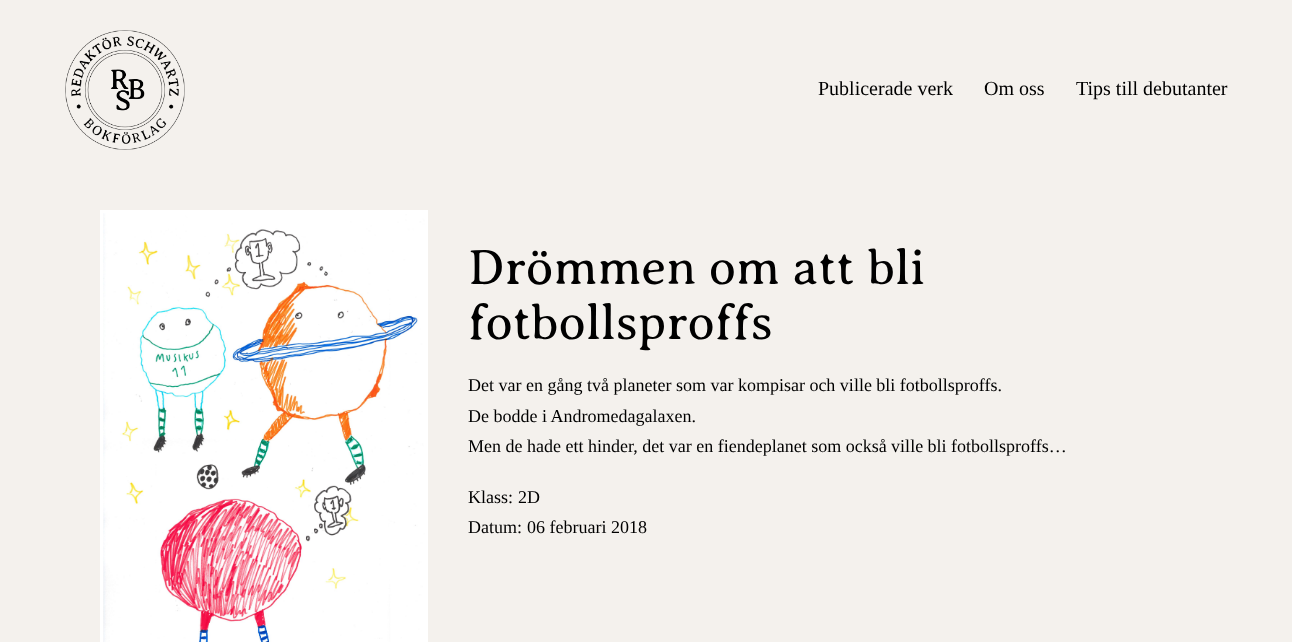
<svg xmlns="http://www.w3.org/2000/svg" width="1292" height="642">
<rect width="100%" height="100%" fill="#f4f1ed"/>
<image x="65" y="30" width="120" height="120" href="media/1.png"/>
<text x="818" y="95" style="font-family:Liberation Serif;font-size:20px;fill:#000">Publicerade verk</text>
<text x="984" y="95" style="font-family:Liberation Serif;font-size:20px;fill:#000">Om oss</text>
<text x="1076" y="95" style="font-family:Liberation Serif;font-size:20px;fill:#000">Tips till debutanter</text>
<image x="100" y="210" width="328" height="432" href="media/2.png"/>
<text x="468" y="284" style="font-family:Averia Serif Libre;font-size:50px;font-weight:300;fill:#000">Drömmen om att bli</text>
<text x="468" y="339" style="font-family:Averia Serif Libre;font-size:50px;font-weight:300;fill:#000">fotbollsproffs</text>
<text x="468" y="391" style="font-family:Liberation Serif;font-size:18px;fill:#000">Det var en gång två planeter som var kompisar och ville bli fotbollsproffs.</text>
<text x="468" y="422" style="font-family:Liberation Serif;font-size:18px;fill:#000">De bodde i Andromedagalaxen.</text>
<text x="468" y="452" style="font-family:Liberation Serif;font-size:18px;fill:#000">Men de hade ett hinder, det var en fiendeplanet som också ville bli fotbollsproffs…</text>
<text x="468" y="503" style="font-family:Liberation Serif;font-size:18px;fill:#000">Klass:</text>
<text x="518" y="503" style="font-family:Liberation Serif;font-size:18px;fill:#000">2D</text>
<text x="468" y="533" style="font-family:Liberation Serif;font-size:18px;fill:#000">Datum:</text>
<text x="527" y="533" style="font-family:Liberation Serif;font-size:18px;fill:#000">06 februari 2018</text>
</svg>
